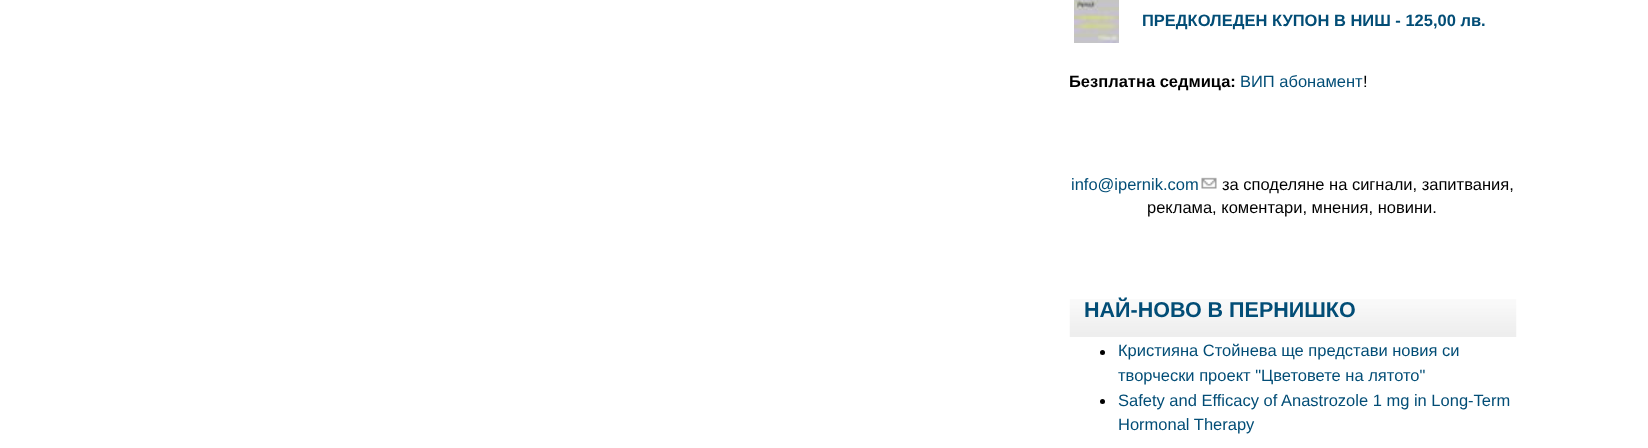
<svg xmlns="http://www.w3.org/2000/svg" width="1648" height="448">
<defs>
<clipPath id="clip1"><rect x="1070" width="447" height="110"/></clipPath>
</defs>
<rect width="100%" height="100%" fill="#fff"/>
<image x="1074" y="0" width="45" height="43" href="media/1.png"/>
<text x="1142" y="26" style="font-family:Liberation Sans;font-size:16.5px;font-weight:bold;fill:#024d76">ПРЕДКОЛЕДЕН КУПОН В НИШ - 125,00 лв.</text>
<g clip-path="url(#clip1)">
<text x="1069" y="87" style="font-family:Liberation Sans;font-size:16.5px;font-weight:bold;fill:#000">Безплатна седмица:</text>
</g>
<text x="1240" y="87" style="font-family:Liberation Sans;font-size:16.5px;fill:#024d76">ВИП абонамент</text>
<text x="1363" y="87" style="font-family:Liberation Sans;font-size:16.5px;fill:#000">!</text>
<text x="1071" y="190" style="font-family:Liberation Sans;font-size:16.5px;fill:#024d76">info@ipernik.com</text>
<image x="1201" y="177" width="16" height="12" href="media/2.png"/>
<text x="1222" y="190" style="font-family:Liberation Sans;font-size:16.5px;fill:#000">за споделяне на сигнали, запитвания,</text>
<text x="1147" y="213" style="font-family:Liberation Sans;font-size:16.5px;fill:#000">реклама, коментари, мнения, новини.</text>
<image x="1069" y="299" width="448" height="38" href="media/3.png"/>
<text x="1084" y="317" style="font-family:Liberation Sans;font-size:21.5px;font-weight:bold;fill:#024d76">НАЙ-НОВО В ПЕРНИШКО</text>
<circle cx="1102.5" cy="352.5" r="2.5" fill="#000"/>
<text x="1118" y="356" style="font-family:Liberation Sans;font-size:16.5px;fill:#024d76">Кристияна Стойнева ще представи новия си</text>
<text x="1118" y="381" style="font-family:Liberation Sans;font-size:16.5px;fill:#024d76">творчески проект "Цветовете на лятото"</text>
<circle cx="1102.5" cy="401.5" r="2.5" fill="#000"/>
<text x="1118" y="406" style="font-family:Liberation Sans;font-size:16.5px;fill:#024d76">Safety and Efficacy of Anastrozole 1 mg in Long-Term</text>
<text x="1118" y="430" style="font-family:Liberation Sans;font-size:16.5px;fill:#024d76">Hormonal Therapy</text>
</svg>
